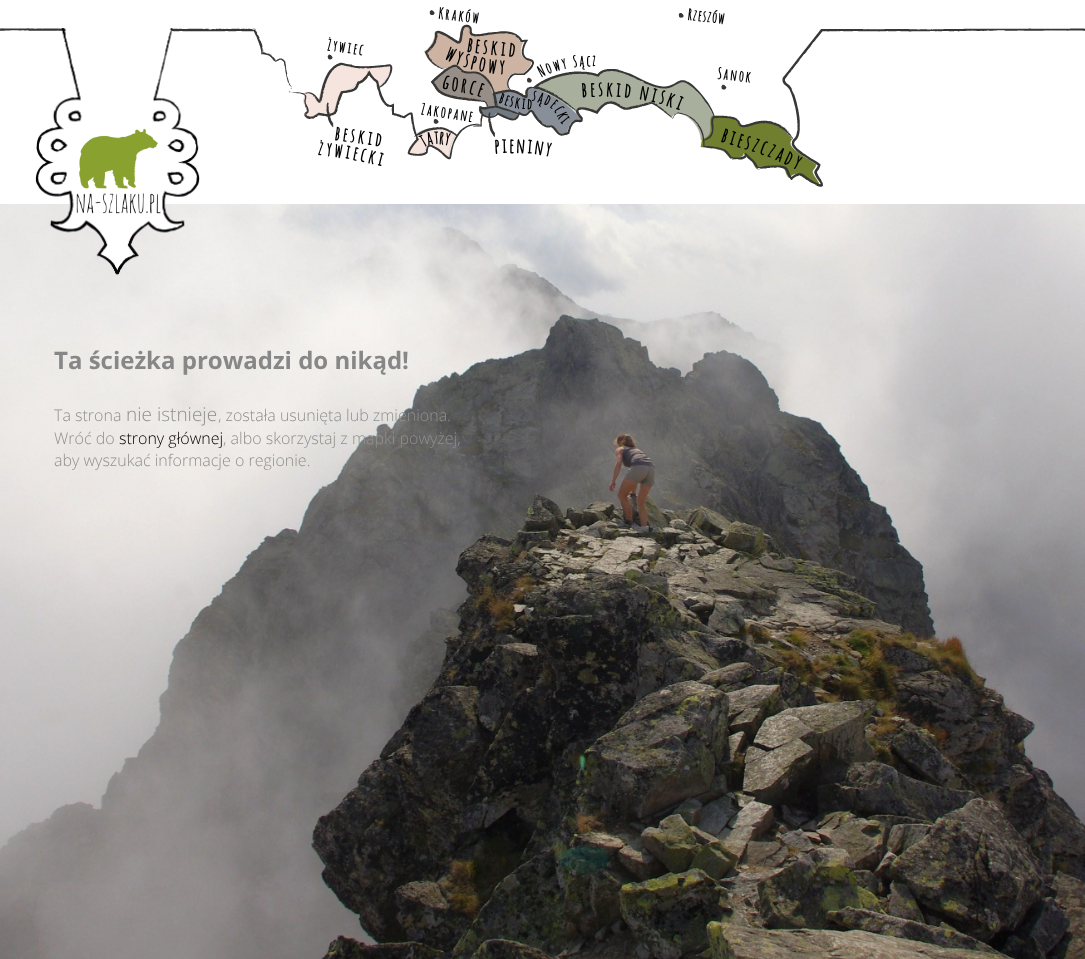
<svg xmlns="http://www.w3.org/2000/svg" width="1085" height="959">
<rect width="100%" height="100%" fill="#fff"/>
<image x="303" y="7" width="517" height="179" href="media/1.png"/>
<image x="0" y="10" width="1085" height="177" href="media/2.png"/>
<image x="0" y="204" width="1085" height="755" href="media/5.png"/>
<image x="35" y="28" width="165" height="247" href="media/3.png"/>
<image x="76" y="128" width="85" height="86" href="media/4.png"/>
<text x="54" y="369" style="font-family:Open Sans;font-size:24px;font-weight:bold;fill:#878787">Ta ścieżka prowadzi do nikąd!</text>
<text x="54" y="421" style="font-family:Open Sans;font-size:16px;font-weight:300;fill:#909090">Ta strona</text>
<text x="126" y="421" style="font-family:Open Sans;font-size:19px;font-weight:300;fill:#909090">nie istnieje</text>
<text x="218" y="421" style="font-family:Open Sans;font-size:16px;font-weight:300;fill:#909090">, została usunięta lub zmieniona.</text>
<text x="54" y="444" style="font-family:Open Sans;font-size:16px;font-weight:300;fill:#909090">Wróć do</text>
<text x="119" y="444" style="font-family:Open Sans;font-size:16px;font-weight:300;fill:#000">strony głównej</text>
<text x="223" y="444" style="font-family:Open Sans;font-size:16px;font-weight:300;fill:#909090">, albo skorzystaj z mapki powyżej,</text>
<text x="54" y="466" style="font-family:Open Sans;font-size:16px;font-weight:300;fill:#909090">aby wyszukać informacje o regionie.</text>
</svg>
